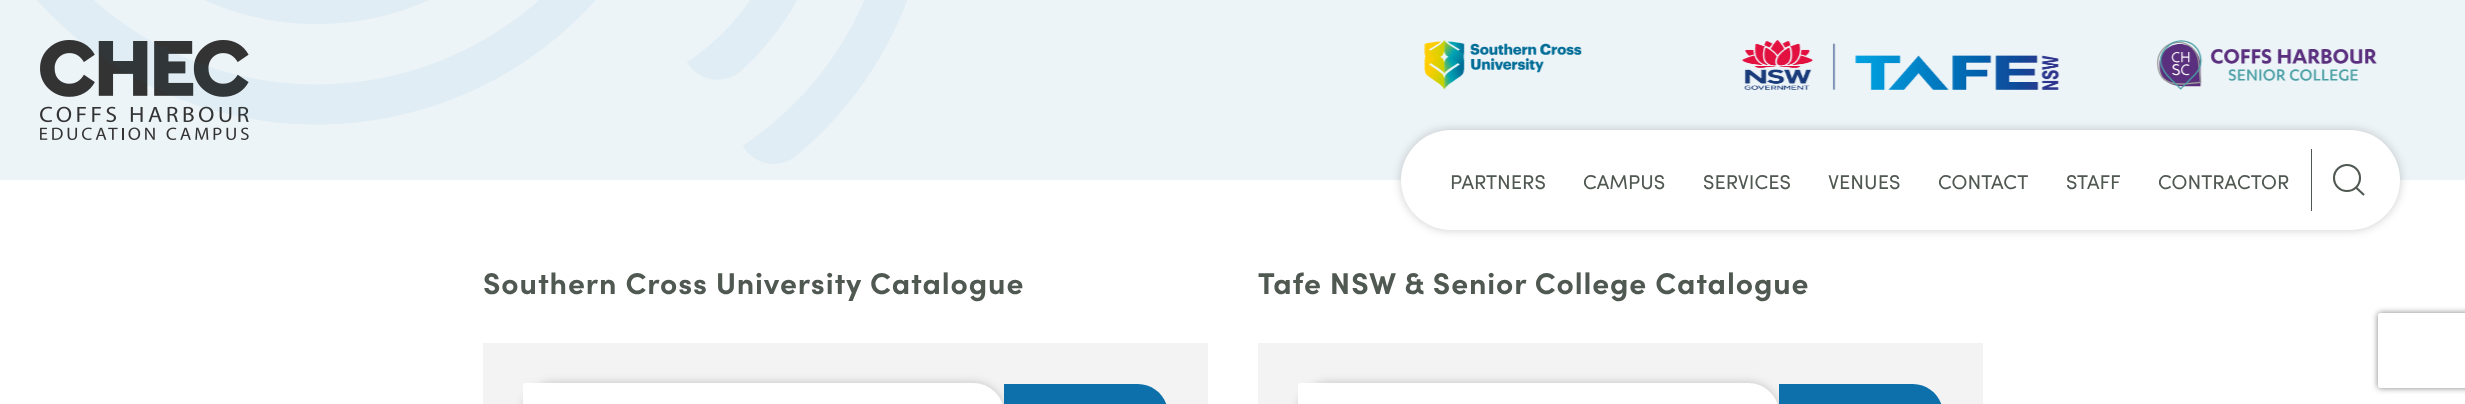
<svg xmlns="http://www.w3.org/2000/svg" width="2465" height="404">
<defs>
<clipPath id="clip1"><path d="M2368 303h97v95h-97zm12.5 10h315c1.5 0 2.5 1 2.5 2.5v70c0 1.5-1 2.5-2.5 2.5h-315c-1.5 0-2.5-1-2.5-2.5v-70c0-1.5 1-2.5 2.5-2.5z" clip-rule="evenodd"/></clipPath>
</defs>
<rect width="100%" height="100%" fill="#fff"/>
<rect width="2465" height="180" fill="#edf4f8"/>
<image x="40" y="40" width="209" height="100" href="media/2.png"/>
<image x="37" y="0" width="870" height="164" href="media/1.png"/>
<image x="1424" y="40" width="158" height="50" href="media/3.png"/>
<image x="1742" y="40" width="318" height="50" href="media/4.png"/>
<image x="2156" y="40" width="222" height="50" href="media/5.png"/>
<rect x="1401" y="130" width="999" height="100" rx="50" fill="#00000033" filter="blur(5px)"/>
<rect x="1401" y="130" width="999" height="100" rx="50" fill="#fff"/>
<text x="1450" y="189" style="font-family:Sofia;font-size:20px;fill:#505852">PARTNERS</text>
<text x="1583" y="189" style="font-family:Sofia;font-size:20px;fill:#505852">CAMPUS</text>
<text x="1703" y="189" style="font-family:Sofia;font-size:20px;fill:#505852">SERVICES</text>
<text x="1828" y="189" style="font-family:Sofia;font-size:20px;fill:#505852">VENUES</text>
<text x="1938" y="189" style="font-family:Sofia;font-size:20px;fill:#505852">CONTACT</text>
<text x="2066" y="189" style="font-family:Sofia;font-size:20px;fill:#505852">STAFF</text>
<text x="2158" y="189" style="font-family:Sofia;font-size:20px;fill:#505852">CONTRACTOR</text>
<rect x="2311" y="149" width="1" height="62" fill="#505852"/>
<circle cx="2347" cy="178" r="13" fill="none" stroke="#505852" stroke-width="2.1"/>
<path d="M2356 187.5l8 7.5z" fill="none" stroke="#505852" stroke-width="2.1"/>
<text x="483" y="294" style="font-family:Sofia;font-size:30px;font-weight:bold;letter-spacing:0.9px;fill:#505852">Southern Cross University Catalogue</text>
<rect x="483" y="343" width="725" height="61" fill="#f3f3f3"/>
<rect x="523" y="383" width="481" height="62" rx="31" fill="#00000033" filter="blur(5px)"/>
<path d="M525.5 384.5h447.5c16.5 0 29.5 13 29.5 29.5v-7c0 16.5-13 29.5-29.5 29.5h-447.5c-.5 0-1-.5-1-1v-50c0-.5 .5-1 1-1z" fill="#fff" stroke="#fff" stroke-width="3"/>
<path d="M1004 384h134c16.5 0 30 13.5 30 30v-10c0 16.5-13.5 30-30 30h-134z" fill="#0e70ab"/>
<text x="1258" y="294" style="font-family:Sofia;font-size:30px;font-weight:bold;letter-spacing:0.9px;fill:#505852">Tafe NSW &amp; Senior College Catalogue</text>
<rect x="1258" y="343" width="725" height="61" fill="#f3f3f3"/>
<rect x="1298" y="383" width="481" height="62" rx="31" fill="#00000033" filter="blur(5px)"/>
<path d="M1300.5 384.5h447.5c16.5 0 29.5 13 29.5 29.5v-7c0 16.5-13 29.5-29.5 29.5h-447.5c-.5 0-1-.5-1-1v-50c0-.5 .5-1 1-1z" fill="#fff" stroke="#fff" stroke-width="3"/>
<path d="M1779 384h134c16.5 0 30 13.5 30 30v-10c0 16.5-13.5 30-30 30h-134z" fill="#0e70ab"/>
<g clip-path="url(#clip1)">
<rect x="2378" y="313" width="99" height="75" rx="2.5" fill="#808080" filter="blur(3px)"/>
</g>
</svg>
